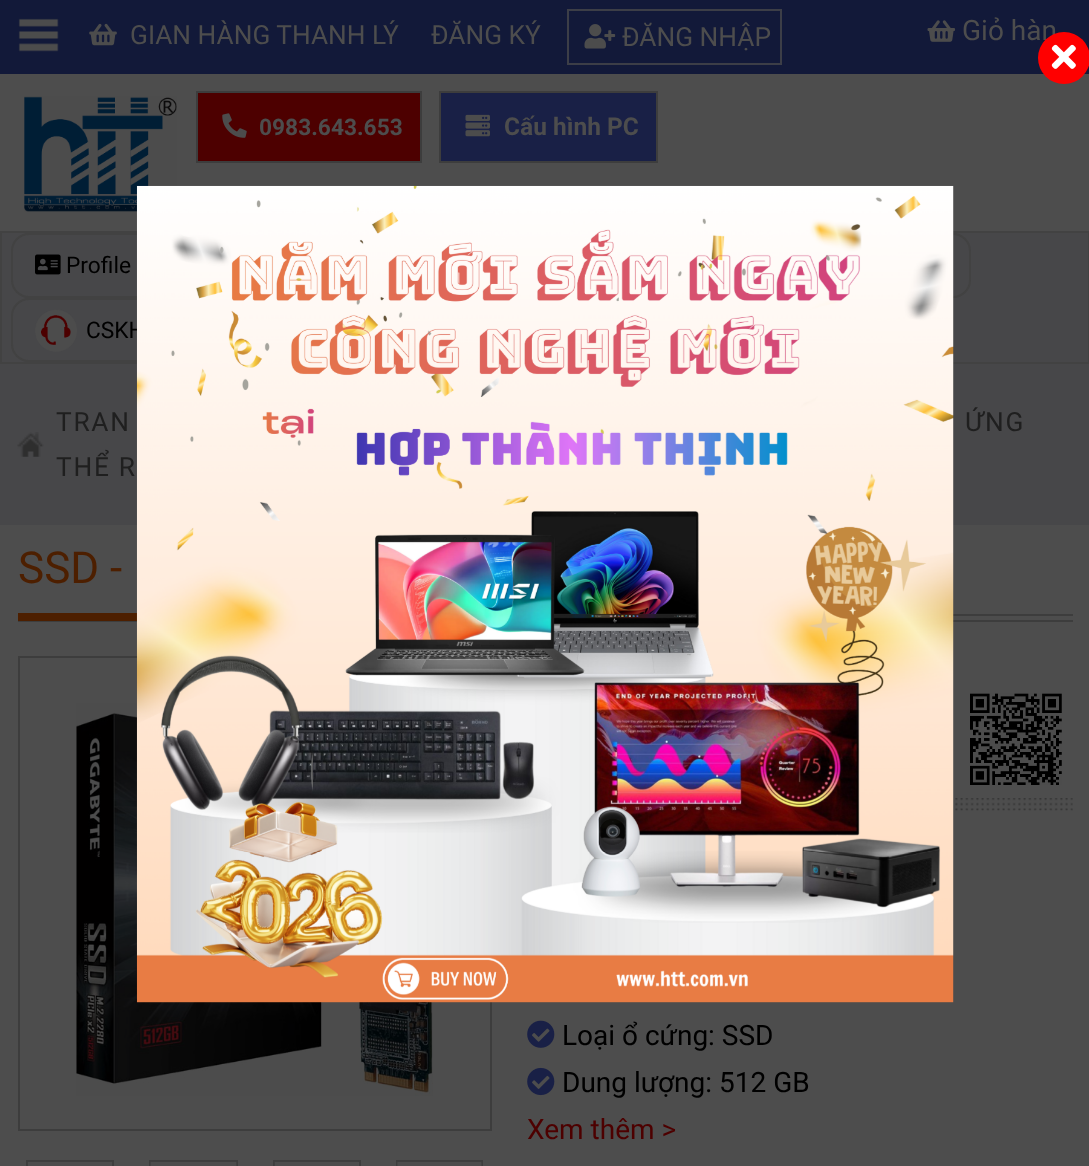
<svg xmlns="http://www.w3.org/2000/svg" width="1089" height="1166">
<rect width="100%" height="100%" fill="#474749"/>
<rect width="1089" height="74" fill="#121939"/>
<image x="18" y="18" width="41" height="34" href="media/1.png"/>
<image x="89" y="23" width="28" height="23" href="media/2.png"/>
<text x="130" y="44" style="font-family:Roboto;font-size:26.25px;fill:#4d4d4d">GIAN HÀNG THANH LÝ</text>
<text x="431" y="44" style="font-family:Roboto;font-size:26.25px;fill:#4d4d4d">ĐĂNG KÝ</text>
<rect x="568" y="10" width="213" height="54" fill="none" stroke="#3c3e47" stroke-width="2"/>
<image x="584" y="24" width="32" height="25" href="media/3.png"/>
<text x="622" y="46" style="font-family:Roboto;font-size:26.25px;fill:#4d4d4d">ĐĂNG NHẬP</text>
<image x="927" y="20" width="29" height="22" href="media/4.png"/>
<text x="962" y="40" style="font-family:Roboto;font-size:28px;fill:#4d4d4d">Giỏ hàn</text>
<rect y="74" width="1089" height="157" fill="#4d4d4d"/>
<circle cx="1064" cy="58" r="26" fill="#f00"/>
<image x="1051" y="44" width="25" height="25" href="media/5.png"/>
<image x="24" y="96" width="153" height="116" href="media/7.png"/>
<rect x="1" y="232" width="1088" height="131" fill="none" stroke="#424242" stroke-width="2"/>
<rect x="12" y="234" width="143" height="63" rx="17" fill="none" stroke="#424242" stroke-width="2"/>
<rect x="666" y="234" width="304" height="63" rx="17" fill="none" stroke="#424242" stroke-width="2"/>
<rect x="12" y="299" width="313" height="62" rx="17" fill="none" stroke="#424242" stroke-width="2"/>
<text x="86" y="338" style="font-family:Roboto;font-size:22.75px;fill:#000">CSKH</text>
<rect y="525" width="1089" height="641" fill="#4d4d4d"/>
<rect x="953" y="614" width="120" height="2" fill="#3d3d3d"/>
<rect x="18" y="620" width="1055" height="2" fill="#3d3d3d"/>
<rect x="18" y="613" width="119" height="8" fill="#4d1f00"/>
<rect x="19" y="657" width="472" height="473" fill="none" stroke="#3d3d3d" stroke-width="2"/>
<image x="76" y="703" width="357" height="393" href="media/13.png"/>
<image x="136" y="185" width="818" height="818" href="media/6.png"/>
<rect x="197" y="92" width="224" height="70" fill="#4d0000" stroke="#3d3d3d" stroke-width="2"/>
<image x="222" y="113" width="25" height="25" href="media/8.png"/>
<text x="259" y="135" style="font-family:Roboto;font-size:22.75px;font-weight:bold;fill:#4d4d4d">0983.643.653</text>
<rect x="440" y="92" width="217" height="70" fill="#192046" stroke="#3d3d3d" stroke-width="2"/>
<image x="465" y="114" width="25" height="23" href="media/9.png"/>
<text x="504" y="135" style="font-family:Roboto;font-size:24.5px;font-weight:bold;fill:#4d4d4d">Cấu hình PC</text>
<image x="35" y="254" width="26" height="21" href="media/10.png"/>
<text x="66" y="273" style="font-family:Roboto;font-size:22.75px;fill:#000">Profile</text>
<image x="35" y="309" width="42" height="43" href="media/11.png"/>
<image x="17" y="432" width="27" height="25" href="media/12.png"/>
<text x="56" y="431" style="font-family:Roboto;font-size:26.25px;letter-spacing:1.75px;fill:#1f1f1f">TRAN</text>
<text x="965" y="431" style="font-family:Roboto;font-size:26.25px;letter-spacing:1.75px;fill:#1f1f1f">ỨNG</text>
<text x="56" y="476" style="font-family:Roboto;font-size:26.25px;letter-spacing:1.75px;fill:#1f1f1f">THỂ R</text>
<text x="18" y="583" style="font-family:Roboto;font-size:44px;fill:#4d1f00">SSD -</text>
<rect x="27" y="1161" width="86" height="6" fill="none" stroke="#3d3d3d" stroke-width="2"/>
<image x="27" y="1161" width="86" height="5" href="media/14.png"/>
<rect x="150" y="1161" width="87" height="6" fill="none" stroke="#3d3d3d" stroke-width="2"/>
<image x="150" y="1161" width="87" height="5" href="media/15.png"/>
<rect x="274" y="1161" width="86" height="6" fill="none" stroke="#3d3d3d" stroke-width="2"/>
<image x="274" y="1161" width="84" height="5" href="media/16.png"/>
<rect x="397" y="1161" width="85" height="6" fill="none" stroke="#3d3d3d" stroke-width="2"/>
<image x="396" y="1161" width="86" height="5" href="media/17.png"/>
<image x="955" y="798" width="118" height="13" href="media/18.png"/>
<image x="970" y="693" width="92" height="92" href="media/19.png"/>
<image x="527" y="1020" width="28" height="28" href="media/20.png"/>
<text x="562" y="1045" style="font-family:Roboto;font-size:28px;fill:#000">Loại ổ cứng: SSD</text>
<image x="527" y="1067" width="28" height="29" href="media/21.png"/>
<text x="562" y="1092" style="font-family:Roboto;font-size:28px;fill:#000">Dung lượng: 512 GB</text>
<text x="527" y="1139" style="font-family:Roboto;font-size:28px;fill:#4d0000">Xem thêm &gt;</text>
</svg>
